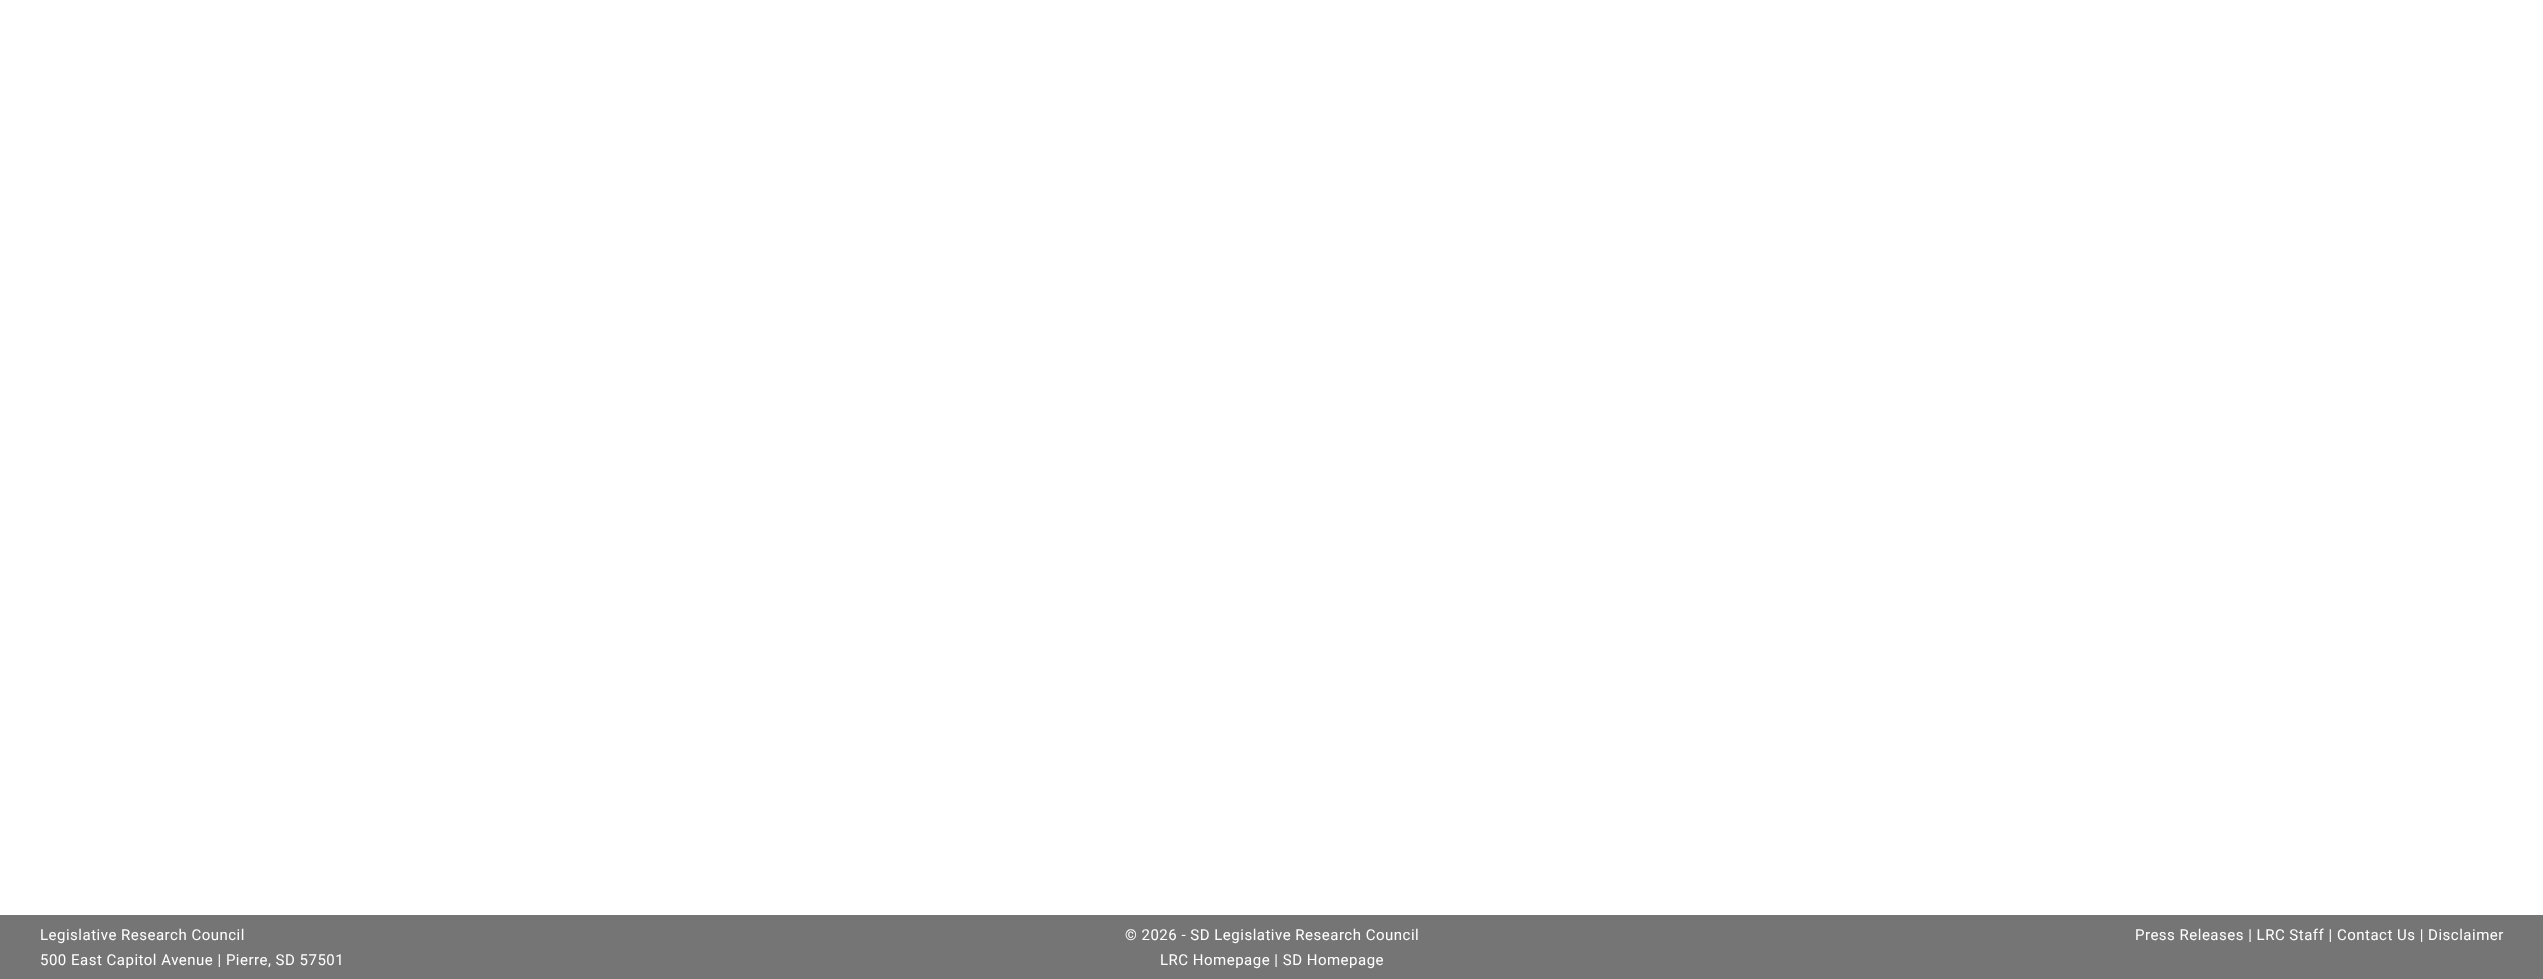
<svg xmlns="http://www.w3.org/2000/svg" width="2543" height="979">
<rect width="100%" height="100%" fill="#fff"/>
<rect y="915" width="2543" height="64" fill="#757575"/>
<text x="40" y="940" style="font-family:Roboto;font-size:15px;letter-spacing:0.5px;fill:#fff">Legislative Research Council</text>
<text x="40" y="965" style="font-family:Roboto;font-size:15px;letter-spacing:0.5px;fill:#fff">500 East Capitol Avenue | Pierre, SD 57501</text>
<text x="1125" y="940" style="font-family:Roboto;font-size:15px;letter-spacing:0.5px;fill:#fff">© 2026 - SD Legislative Research Council</text>
<text x="1160" y="965" style="font-family:Roboto;font-size:15px;letter-spacing:0.5px;fill:#fff">LRC Homepage | SD Homepage</text>
<text x="2135" y="940" style="font-family:Roboto;font-size:15px;letter-spacing:0.5px;fill:#fff">Press Releases | LRC Staff | Contact Us | Disclaimer</text>
</svg>
